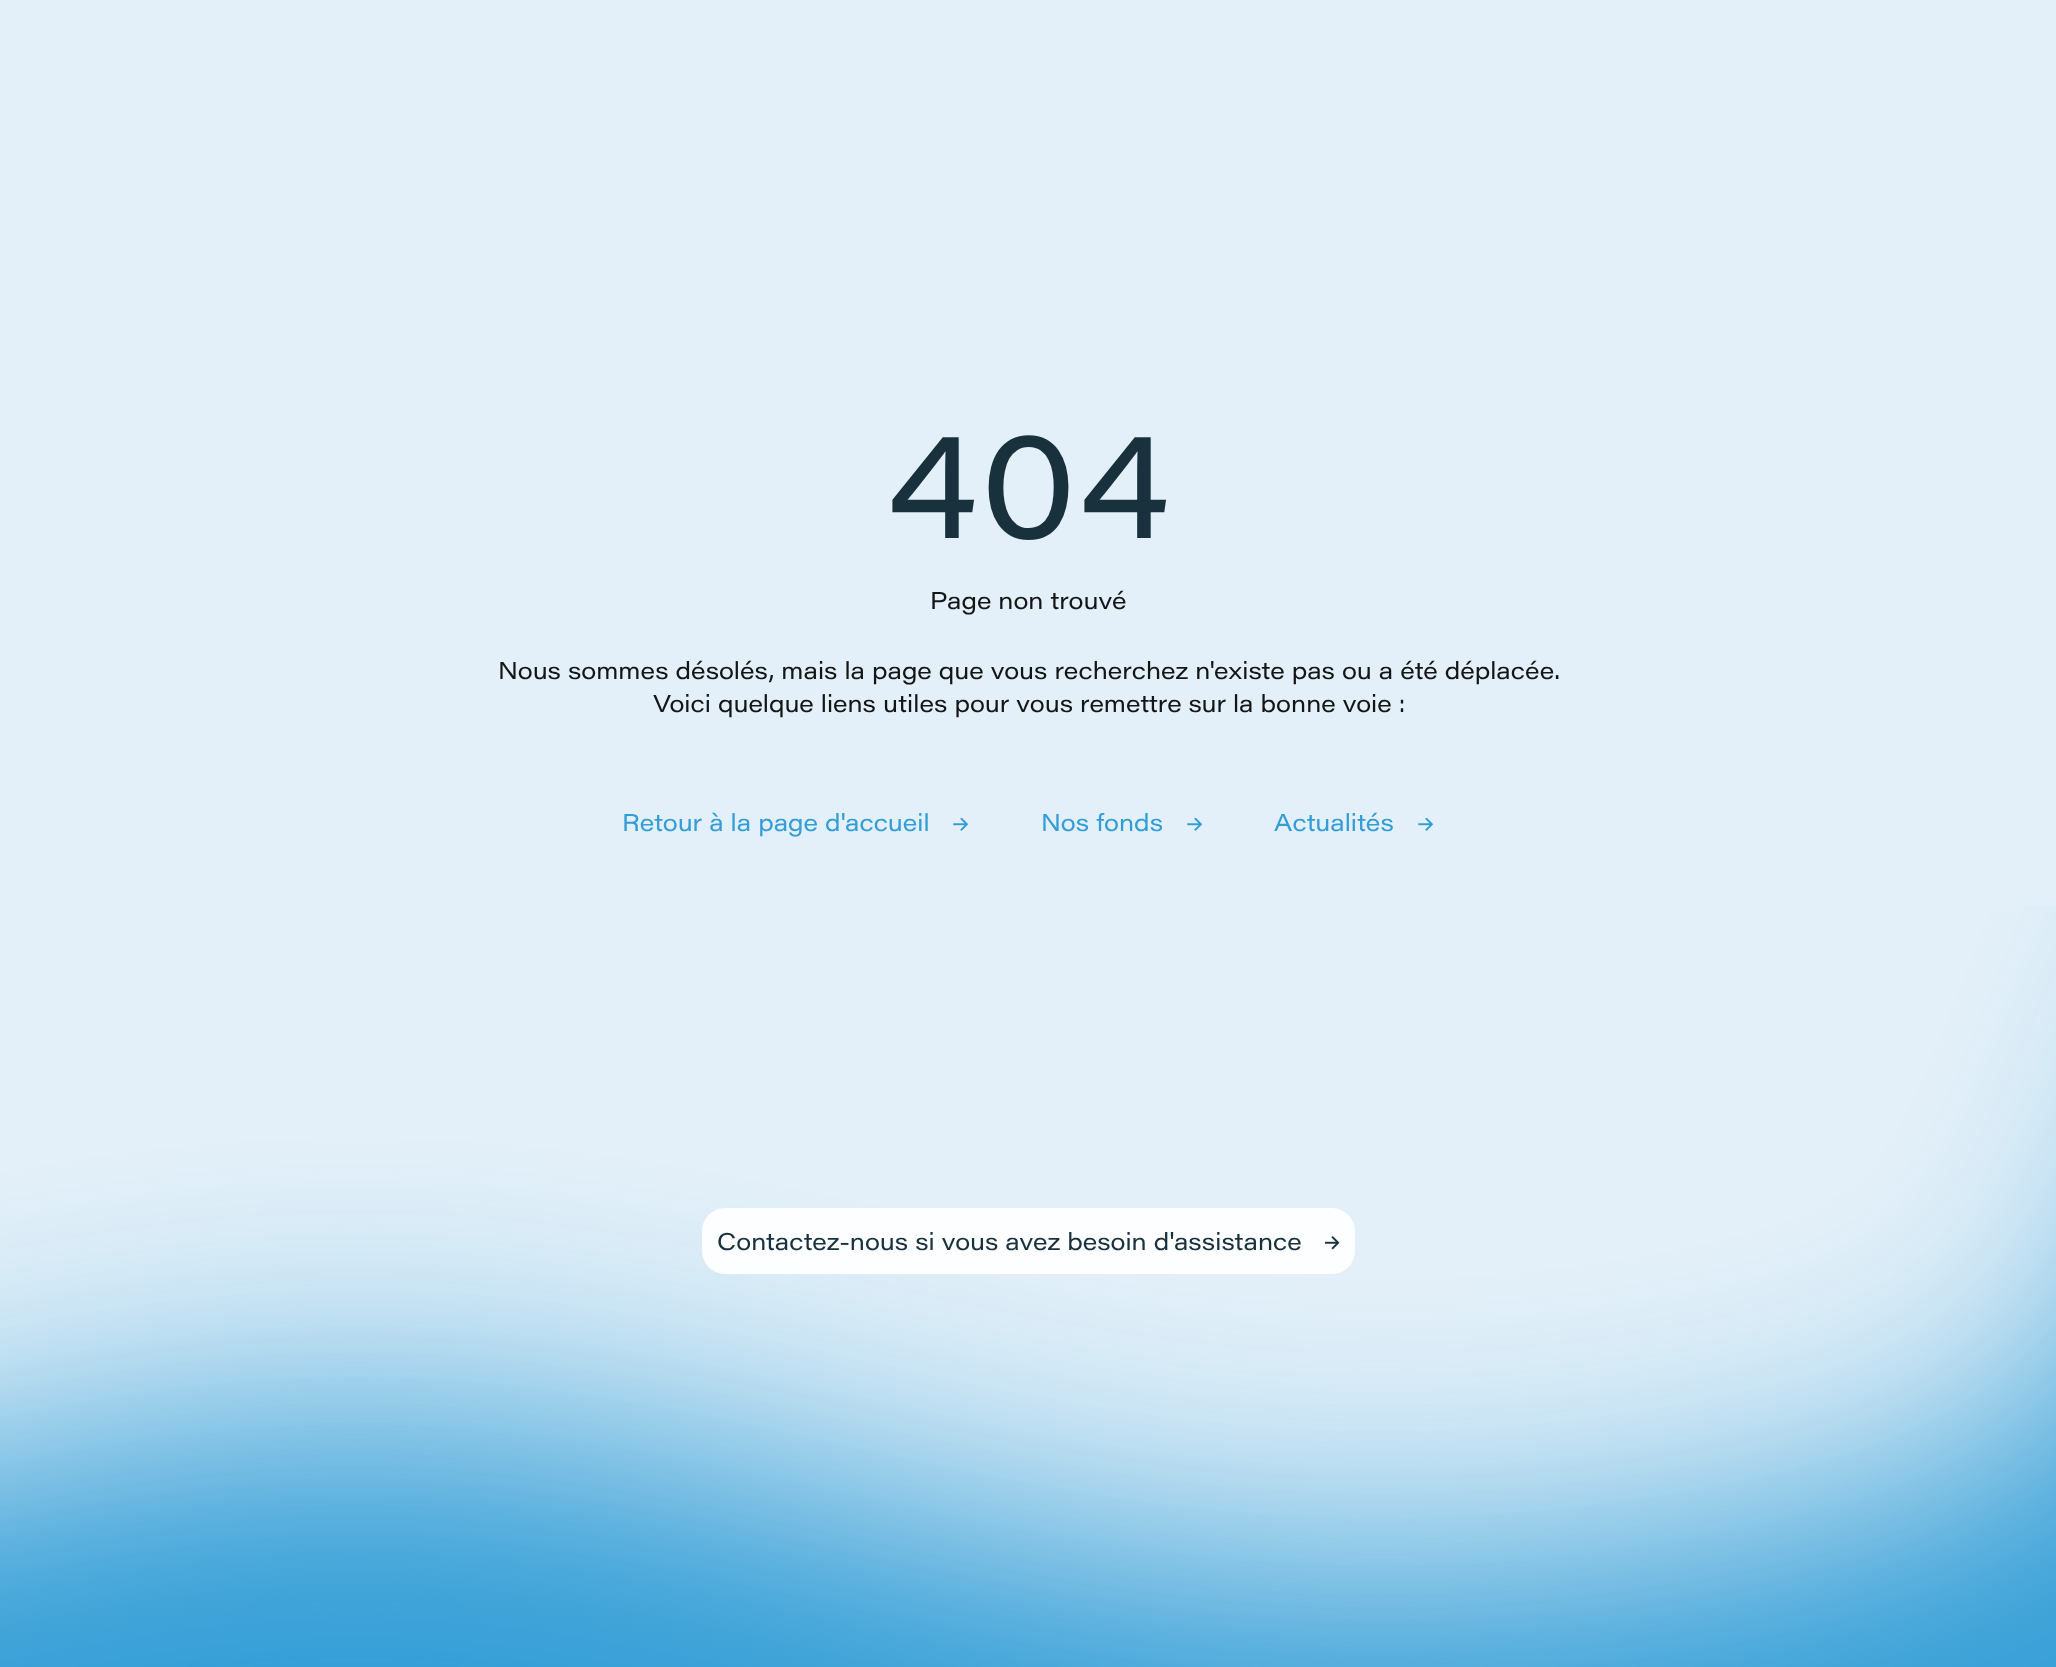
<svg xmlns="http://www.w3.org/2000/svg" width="2056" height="1667">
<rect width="100%" height="100%" fill="#e3f0f9"/>
<image x="0" y="906" width="2056" height="761" href="media/1.png"/>
<text x="886" y="538" style="font-family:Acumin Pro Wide;font-size:149px;fill:#18313c">404</text>
<text x="930" y="609" style="font-family:Acumin Pro Wide;font-size:23.8px;fill:#141616">Page non trouvé</text>
<text x="498" y="679" style="font-family:Acumin Pro Wide;font-size:23.8px;fill:#141616">Nous sommes désolés, mais la page que vous recherchez n'existe pas ou a été déplacée.</text>
<text x="653" y="712" style="font-family:Acumin Pro Wide;font-size:23.8px;fill:#141616">Voici quelque liens utiles pour vous remettre sur la bonne voie :</text>
<text x="622" y="831" style="font-family:Acumin Pro Wide;font-size:23.8px;fill:#329dd6">Retour à la page d'accueil</text>
<image x="953" y="818" width="16" height="13" href="media/2.png"/>
<text x="1041" y="831" style="font-family:Acumin Pro Wide;font-size:23.8px;fill:#329dd6">Nos fonds</text>
<image x="1187" y="818" width="16" height="13" href="media/2.png"/>
<text x="1274" y="831" style="font-family:Acumin Pro Wide;font-size:23.8px;fill:#329dd6">Actualités</text>
<image x="1418" y="818" width="16" height="13" href="media/2.png"/>
<rect x="702" y="1208" width="653" height="66" rx="23" fill="#ffffffe8"/>
<text x="717" y="1250" style="font-family:Acumin Pro Wide;font-size:23.8px;fill:#18313c">Contactez-nous si vous avez besoin d'assistance</text>
<image x="1325" y="1236" width="15" height="14" href="media/3.png"/>
</svg>
